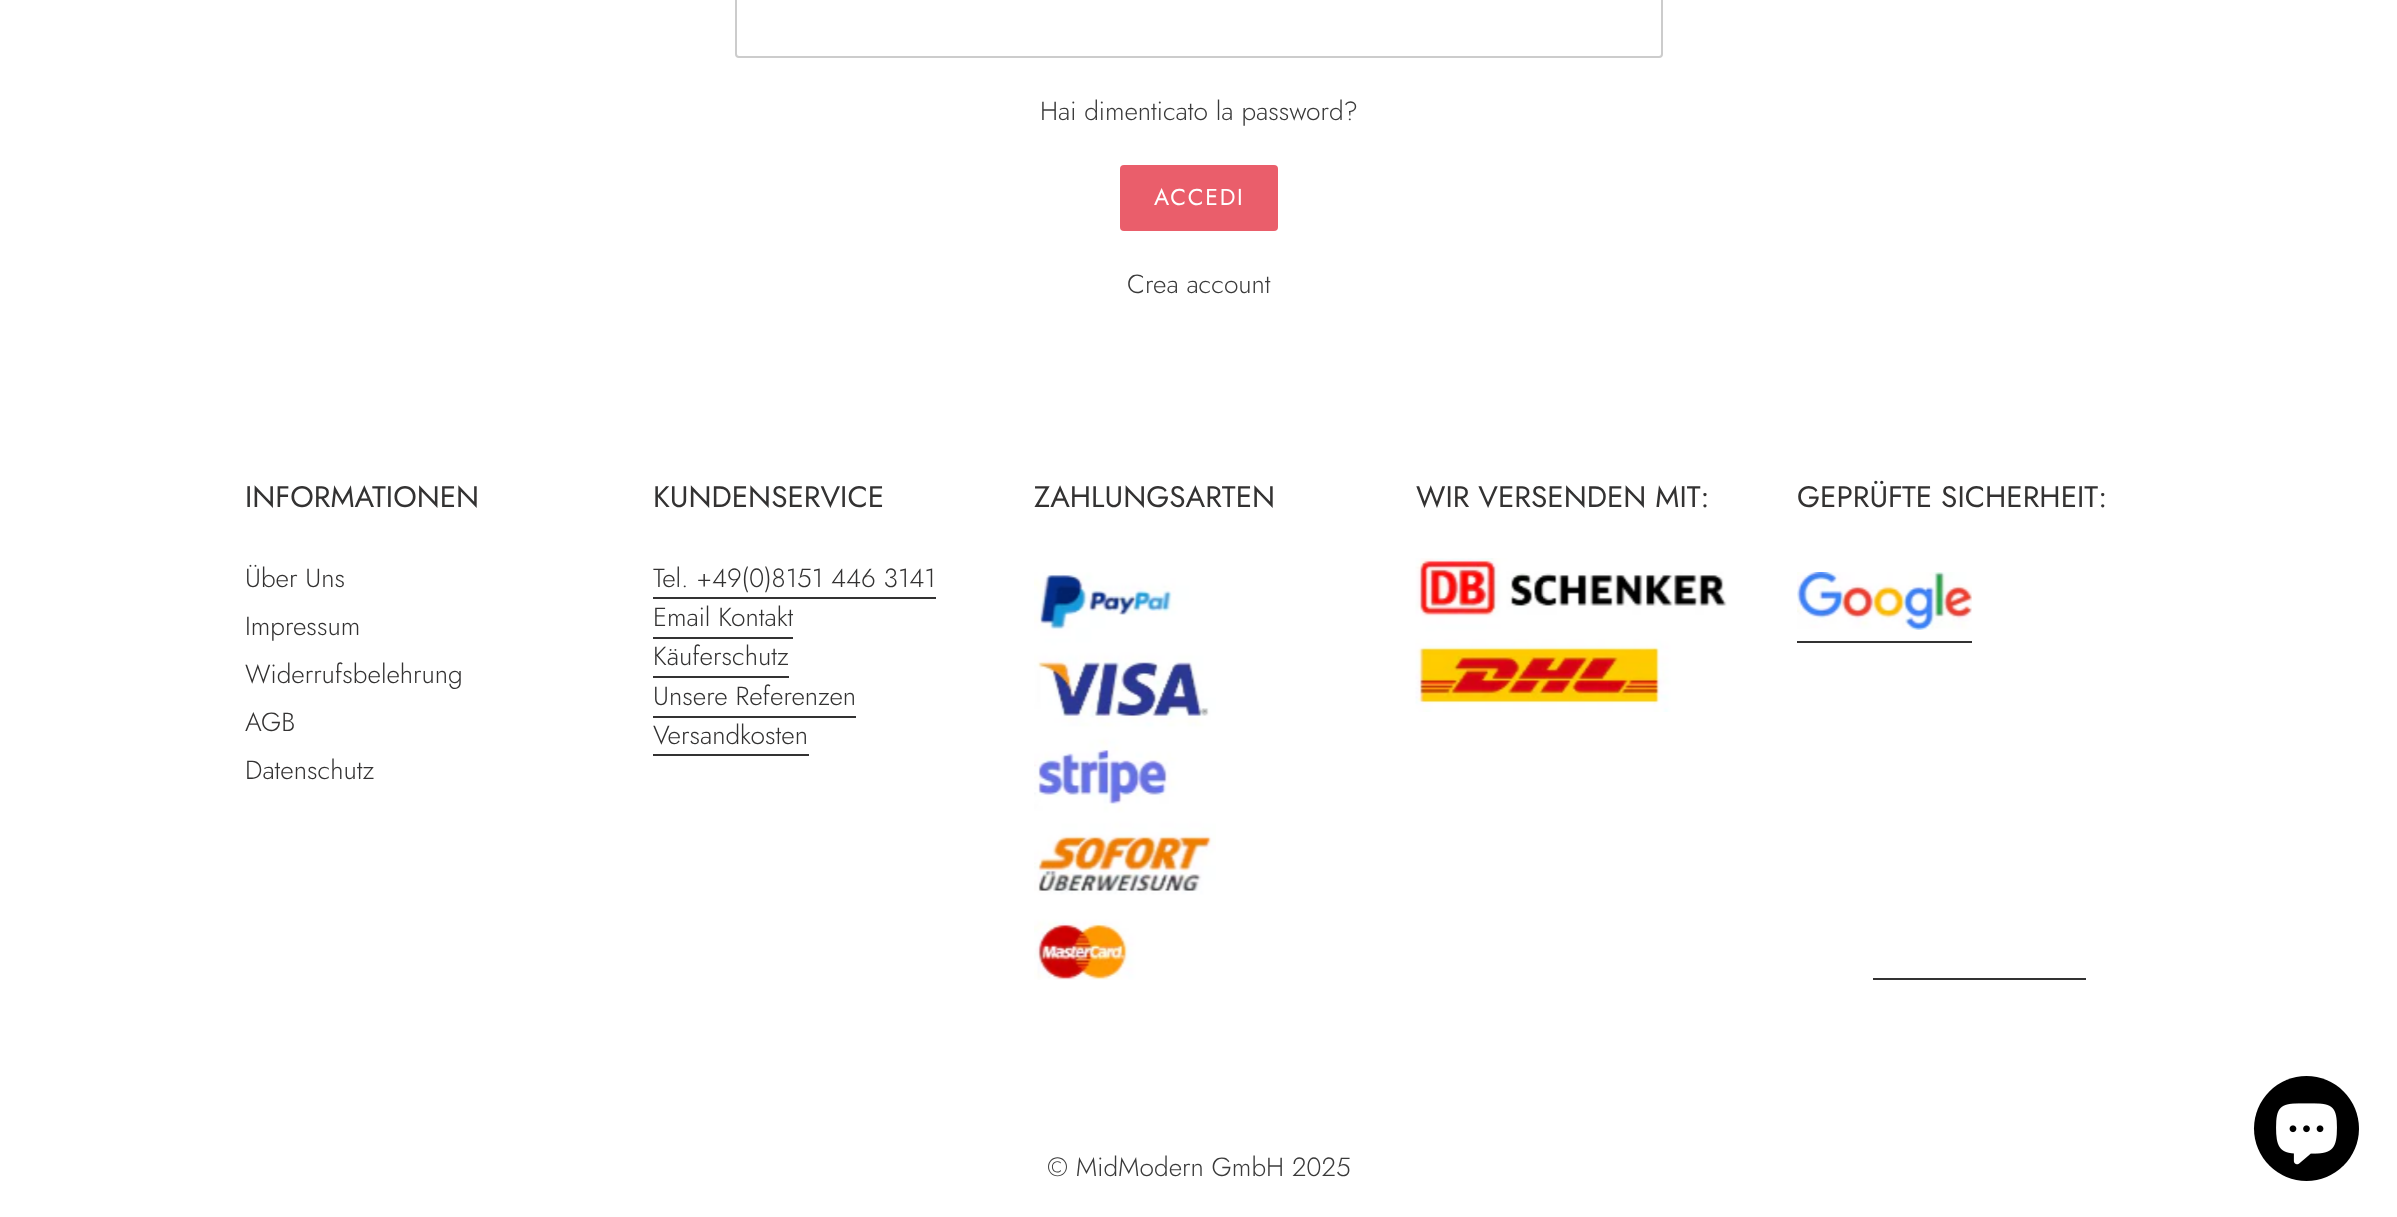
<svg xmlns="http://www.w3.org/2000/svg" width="2397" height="1217">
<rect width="100%" height="100%" fill="#fff"/>
<rect x="736" y="-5" width="926" height="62" rx="3" fill="none" stroke="#ccc" stroke-width="2"/>
<text x="1040" y="120" style="font-family:Jost;font-size:26.25px;font-weight:300;fill:#3a3a3a">Hai dimenticato la password?</text>
<rect x="1120" y="165" width="158" height="66" rx="4" fill="#ea5e6b"/>
<text x="1154" y="205" style="font-family:Jost;font-size:23px;letter-spacing:1.75px;fill:#fff">ACCEDI</text>
<text x="1127" y="293" style="font-family:Jost;font-size:26.25px;font-weight:300;fill:#3a3a3a">Crea account</text>
<text x="245" y="507" style="font-family:Jost;font-size:29.75px;fill:#333232">INFORMATIONEN</text>
<text x="245" y="587" style="font-family:Jost;font-size:26.25px;font-weight:300;fill:#333232">Über Uns</text>
<text x="245" y="635" style="font-family:Jost;font-size:26.25px;font-weight:300;fill:#333232">Impressum</text>
<text x="245" y="683" style="font-family:Jost;font-size:26.25px;font-weight:300;fill:#333232">Widerrufsbelehrung</text>
<text x="245" y="731" style="font-family:Jost;font-size:26.25px;font-weight:300;fill:#333232">AGB</text>
<text x="245" y="779" style="font-family:Jost;font-size:26.25px;font-weight:300;fill:#333232">Datenschutz</text>
<text x="653" y="507" style="font-family:Jost;font-size:29.75px;fill:#333232">KUNDENSERVICE</text>
<text x="653" y="587" style="font-family:Jost;font-size:26.25px;font-weight:300;fill:#333232">Tel. +49(0)8151 446 3141</text>
<rect x="653" y="597" width="283" height="2" fill="#333232"/>
<text x="653" y="626" style="font-family:Jost;font-size:26.25px;font-weight:300;fill:#333232">Email Kontakt</text>
<rect x="653" y="637" width="140" height="2" fill="#333232"/>
<text x="653" y="665" style="font-family:Jost;font-size:26.25px;font-weight:300;fill:#333232">Käuferschutz</text>
<rect x="653" y="676" width="136" height="2" fill="#333232"/>
<text x="653" y="705" style="font-family:Jost;font-size:26.25px;font-weight:300;fill:#333232">Unsere Referenzen</text>
<rect x="653" y="716" width="203" height="2" fill="#333232"/>
<text x="653" y="744" style="font-family:Jost;font-size:26.25px;font-weight:300;fill:#333232">Versandkosten</text>
<rect x="653" y="754" width="156" height="2" fill="#333232"/>
<text x="1034" y="507" style="font-family:Jost;font-size:29.75px;fill:#333232">ZAHLUNGSARTEN</text>
<image x="1034" y="572" width="182" height="408" href="media/1.png"/>
<text x="1416" y="507" style="font-family:Jost;font-size:29.75px;fill:#333232">WIR VERSENDEN MIT:</text>
<image x="1415" y="558" width="312" height="154" href="media/2.png"/>
<text x="1797" y="507" style="font-family:Jost;font-size:29.75px;fill:#333232">GEPRÜFTE SICHERHEIT:</text>
<image x="1797" y="572" width="175" height="58" href="media/3.png"/>
<rect x="1797" y="641" width="175" height="2" fill="#333232"/>
<rect x="1873" y="978" width="213" height="2" fill="#333232"/>
<text x="1047" y="1176" style="font-family:Jost;font-size:26.25px;font-weight:300;fill:#3a3a3a">© MidModern GmbH 2025</text>
<circle cx="2306.5" cy="1128.5" r="52.5" fill="#000"/>
<image x="2276" y="1103" width="61" height="62" href="media/4.png"/>
</svg>
